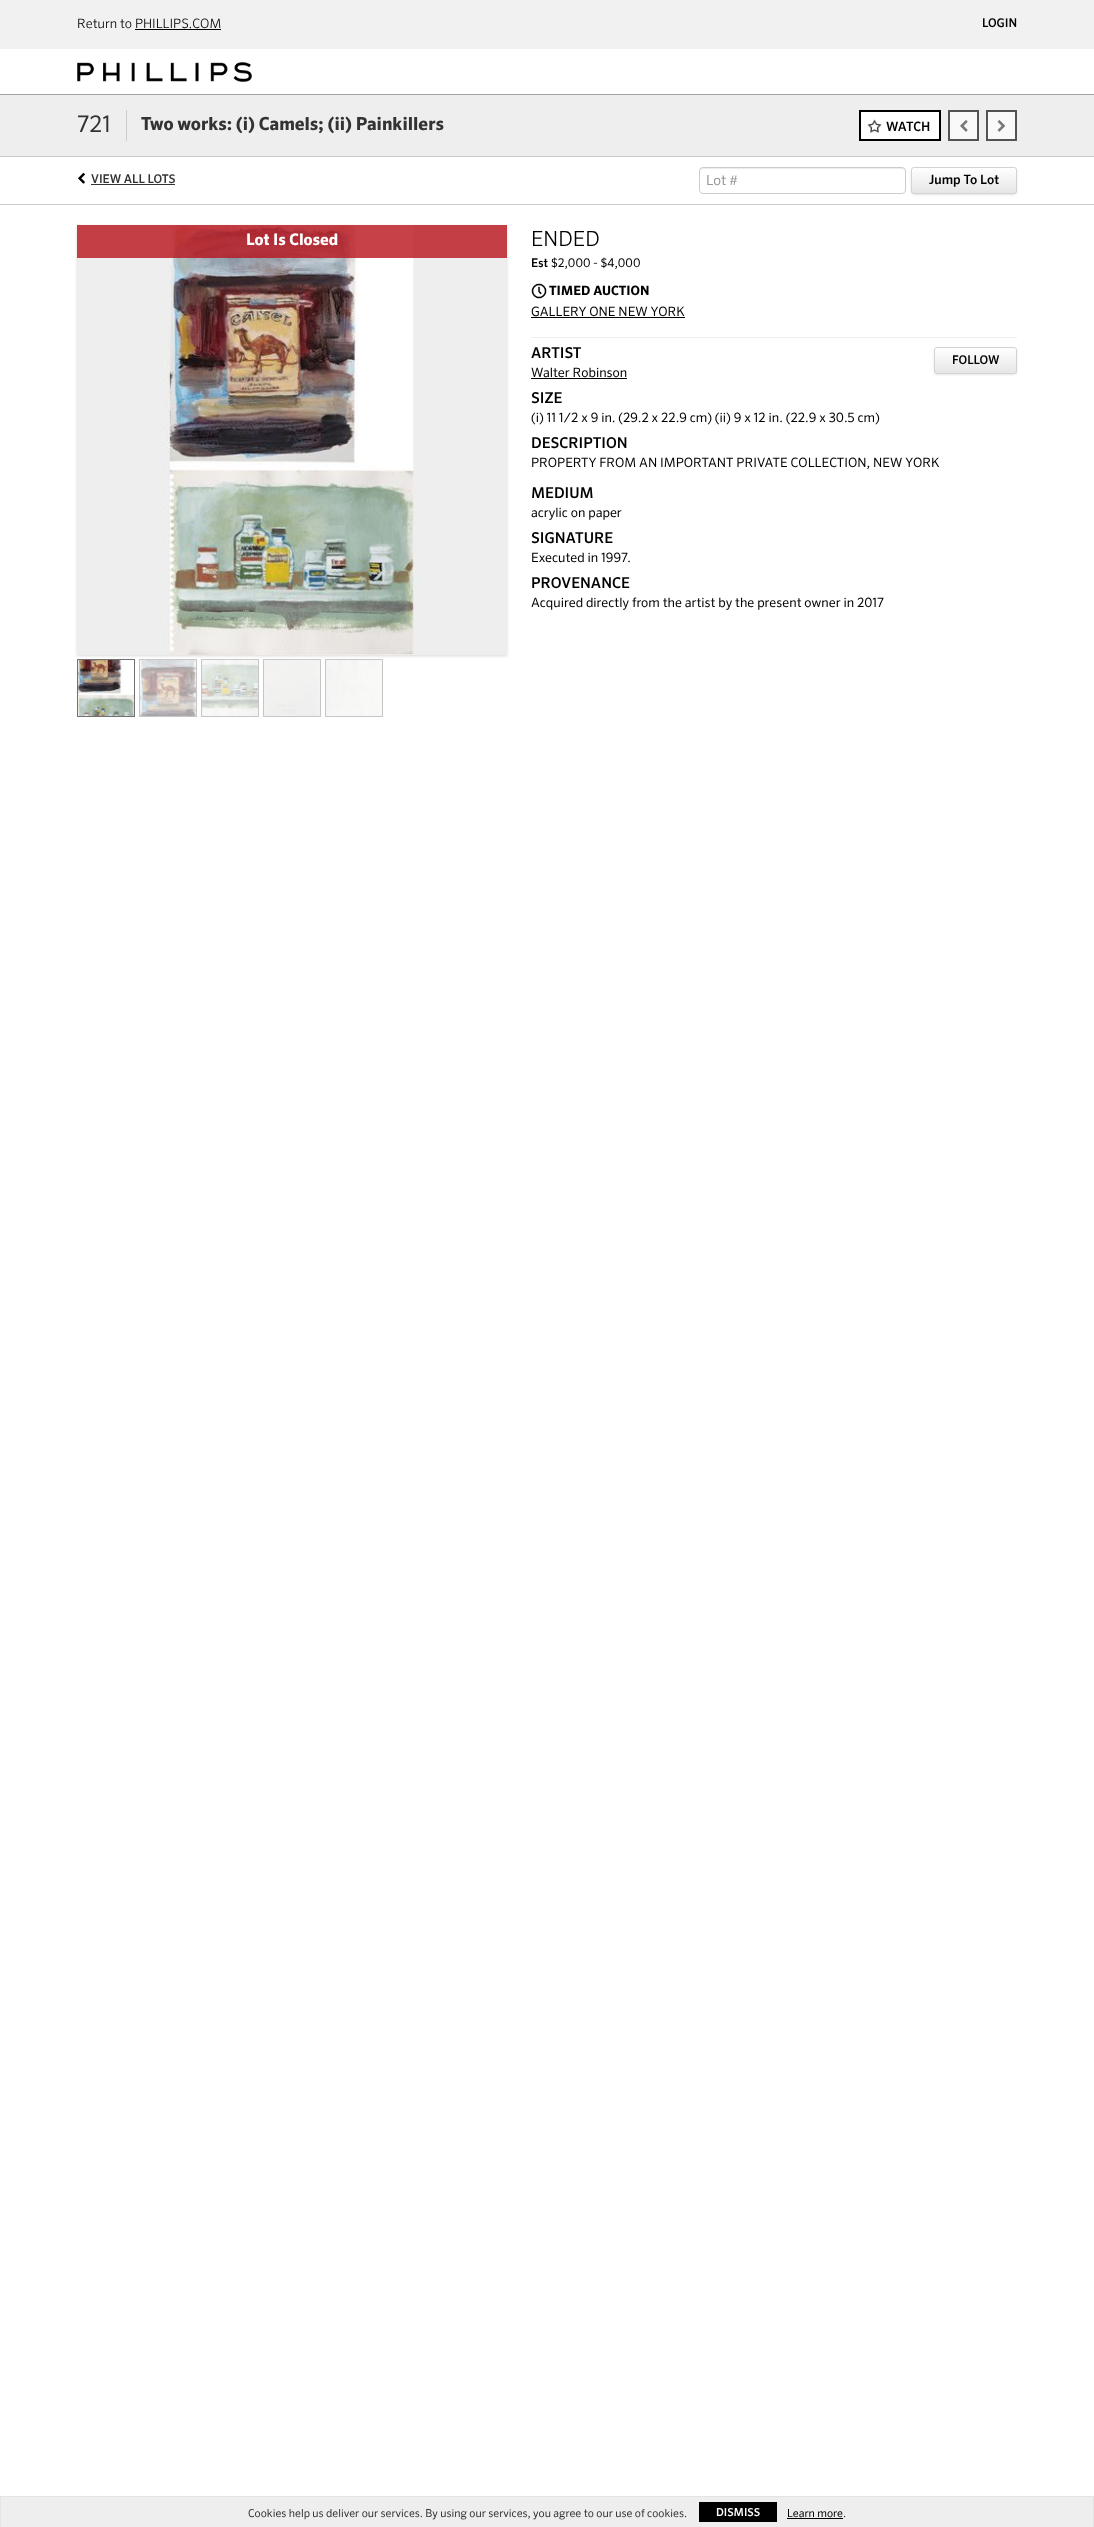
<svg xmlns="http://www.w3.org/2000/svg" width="1094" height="2527">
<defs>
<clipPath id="clip1"><rect x="911" y="167" width="106" height="27" rx="3"/></clipPath>
<linearGradient id="g1" gradientUnits="userSpaceOnUse" x1="964" y1="168" x2="964" y2="193"><stop offset="0" stop-color="#fff"/><stop offset="1" stop-color="#e6e6e6"/></linearGradient>
<clipPath id="clip2"><rect x="934" y="347" width="83" height="27" rx="3"/></clipPath>
<linearGradient id="g2" gradientUnits="userSpaceOnUse" x1="976" y1="348" x2="976" y2="373"><stop offset="0" stop-color="#fff"/><stop offset="1" stop-color="#e6e6e6"/></linearGradient>
</defs>
<rect width="100%" height="100%" fill="#fff"/>
<rect y="94" width="1094" height="1" fill="#a3a3a3"/>
<rect width="1094" height="49" fill="#f1f1f1"/>
<text x="77" y="28" style="font-family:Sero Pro;font-size:13px;font-weight:300;fill:#000">Return to PHILLIPS.COM</text>
<rect x="135" y="29" width="86" height="1" fill="#000"/>
<text x="982" y="27" style="font-family:Sero Pro;font-size:12px;font-weight:500;fill:#000">LOGIN</text>
<image x="77" y="62" width="175" height="20" href="media/1.png"/>
<rect y="95" width="1094" height="61" fill="#eee"/>
<rect y="156" width="1094" height="1" fill="#ccc"/>
<text x="77" y="132" style="font-family:Sero Pro;font-size:23px;fill:#333">721</text>
<rect x="126" y="110" width="1" height="31" fill="#ccc"/>
<text x="141" y="130" style="font-family:Sero Pro;font-size:18px;font-weight:bold;fill:#333">Two works: (i) Camels; (ii) Painkillers</text>
<rect x="860" y="111" width="80" height="29" fill="#fff" stroke="#000" stroke-width="2"/>
<image x="867" y="119" width="15" height="14" href="media/2.png"/>
<text x="886" y="131" style="font-family:Sero Pro;font-size:13px;font-weight:500;fill:#000">WATCH</text>
<rect x="949" y="111" width="29" height="29" fill="#f9f9f9" stroke="#535353" stroke-width="2"/>
<image x="960" y="120" width="8" height="12" href="media/3.png"/>
<rect x="987" y="111" width="29" height="29" fill="#f9f9f9" stroke="#535353" stroke-width="2"/>
<image x="997" y="120" width="9" height="12" href="media/4.png"/>
<image x="78" y="172" width="7" height="12" href="media/5.png"/>
<text x="91" y="183" style="font-family:Sero Pro;font-size:12px;font-weight:500;fill:#333">VIEW ALL LOTS</text>
<rect x="91" y="184" width="84" height="1" fill="#333"/>
<path d="M703 169h199c2 0 3 1 3 3c0-2-1-4-3-4h-199c-2 0-3 2-3 4c0-2 1-3 3-3z" fill="#ececec"/>
<rect x="699.5" y="167.5" width="206" height="26" rx="3.5" fill="none" stroke="#ccc"/>
<text x="706" y="185" style="font-family:Sero Pro;font-size:14px;fill:#999">Lot #</text>
<rect x="912" y="169" width="104" height="25" rx="2" fill="#00000033" filter="blur(1.5px)"/>
<g clip-path="url(#clip1)">
<rect x="911" y="168" width="106" height="25" fill="url(#g1)"/>
</g>
<path d="M914 169h100c1 0 2 1 2 2c0-1 0-3-2-3h-83c-1 0-19-5-19 3c0-1 1-2 2-2z" fill="#ffffff66"/>
<rect x="911.5" y="167.5" width="105" height="26" rx="2.5" fill="none" stroke="#d4d4d4"/>
<text x="929" y="184" style="font-family:Sero Pro;font-size:13px;font-weight:500;fill:#000">Jump To Lot</text>
<rect y="204" width="1094" height="1" fill="#ccc"/>
<rect x="77" y="226" width="430" height="430" fill="#dad9d7" filter="blur(1.5px)"/>
<image x="77" y="225" width="430" height="430" href="media/6.png"/>
<rect x="77" y="225" width="430" height="33" fill="#b9121acc"/>
<text x="246" y="245" style="font-family:Sero Pro;font-size:16px;font-weight:bold;fill:#fff">Lot Is Closed</text>
<rect x="77.5" y="659.5" width="57" height="57" fill="none" stroke="#717171"/>
<rect x="139.5" y="659.5" width="57" height="57" fill="none" stroke="#c6c6c6"/>
<rect x="201.5" y="659.5" width="57" height="57" fill="none" stroke="#c6c6c6"/>
<rect x="263.5" y="659.5" width="57" height="57" fill="none" stroke="#c6c6c6"/>
<rect x="325.5" y="659.5" width="57" height="57" fill="none" stroke="#c6c6c6"/>
<image x="78" y="660" width="56" height="56" href="media/7.png"/>
<image x="140" y="660" width="56" height="56" href="media/8.png"/>
<image x="202" y="660" width="56" height="56" href="media/9.png"/>
<image x="264" y="660" width="56" height="56" href="media/10.png"/>
<image x="326" y="660" width="56" height="56" href="media/11.png"/>
<text x="531" y="246" style="font-family:Sero Pro;font-size:21px;font-weight:300;fill:#000">ENDED</text>
<text x="531" y="267" style="font-family:Sero Pro;font-size:12px;font-weight:500;fill:#000">Est</text>
<text x="551" y="267" style="font-family:Sero Pro;font-size:12px;fill:#000">$2,000 - $4,000</text>
<image x="531" y="283" width="16" height="16" href="media/12.png"/>
<text x="549" y="295" style="font-family:Sero Pro;font-size:13px;font-weight:bold;fill:#000">TIMED AUCTION</text>
<text x="531" y="316" style="font-family:Sero Pro;font-size:13px;fill:#000">GALLERY ONE NEW YORK</text>
<rect x="531" y="317" width="154" height="1" fill="#000"/>
<rect x="531" y="337" width="486" height="1" fill="#eee"/>
<text x="531" y="358" style="font-family:Sero Pro;font-size:15px;font-weight:500;fill:#000">ARTIST</text>
<rect x="935" y="349" width="81" height="25" rx="2" fill="#00000033" filter="blur(1.5px)"/>
<g clip-path="url(#clip2)">
<rect x="934" y="348" width="83" height="25" fill="url(#g2)"/>
</g>
<path d="M937 349h77c1 0 2 1 2 2c0-7-12-3-15-3h-51c-3 0-15-4-15 3c0-1 1-2 2-2z" fill="#ffffff66"/>
<rect x="934.5" y="347.5" width="82" height="26" rx="2.5" fill="none" stroke="#d4d4d4"/>
<text x="952" y="364" style="font-family:Sero Pro;font-size:12px;font-weight:500;fill:#000">FOLLOW</text>
<text x="531" y="377" style="font-family:Sero Pro;font-size:13px;fill:#000">Walter Robinson</text>
<rect x="531" y="378" width="96" height="1" fill="#000"/>
<text x="531" y="403" style="font-family:Sero Pro;font-size:15px;font-weight:500;fill:#000">SIZE</text>
<text x="531" y="422" style="font-family:Sero Pro;font-size:13px;fill:#000">(i) 11 1/2 x 9 in. (29.2 x 22.9 cm) (ii) 9 x 12 in. (22.9 x 30.5 cm)</text>
<text x="531" y="448" style="font-family:Sero Pro;font-size:15px;font-weight:500;fill:#000">DESCRIPTION</text>
<text x="531" y="467" style="font-family:Sero Pro;font-size:13px;fill:#000">PROPERTY FROM AN IMPORTANT PRIVATE COLLECTION, NEW YORK</text>
<text x="531" y="498" style="font-family:Sero Pro;font-size:15px;font-weight:500;fill:#000">MEDIUM</text>
<text x="531" y="517" style="font-family:Sero Pro;font-size:13px;fill:#000">acrylic on paper</text>
<text x="531" y="543" style="font-family:Sero Pro;font-size:15px;font-weight:500;fill:#000">SIGNATURE</text>
<text x="531" y="562" style="font-family:Sero Pro;font-size:13px;fill:#000">Executed in 1997.</text>
<text x="531" y="588" style="font-family:Sero Pro;font-size:15px;font-weight:500;fill:#000">PROVENANCE</text>
<text x="531" y="607" style="font-family:Sero Pro;font-size:13px;fill:#000">Acquired directly from the artist by the present owner in 2017</text>
<rect x="1" y="2497" width="1092" height="30" fill="#eee"/>
<rect y="2496" width="1094" height="1" fill="#e4e4e4"/>
<rect x="1093" y="2496" width="1" height="31" fill="#e4e4e4"/>
<rect y="2496" width="1" height="31" fill="#e4e4e4"/>
<text x="248" y="2517" style="font-family:Sero Pro;font-size:11px;fill:#333">Cookies help us deliver our services. By using our services, you agree to our use of cookies.</text>
<rect x="699" y="2502" width="78" height="20" fill="#000"/>
<text x="716" y="2516" style="font-family:Sero Pro;font-size:11px;font-weight:500;fill:#fff">DISMISS</text>
<text x="787" y="2517" style="font-family:Sero Pro;font-size:11px;fill:#000">Learn more</text>
<rect x="787" y="2518" width="56" height="1" fill="#000"/>
<text x="843" y="2517" style="font-family:Sero Pro;font-size:11px;fill:#333">.</text>
</svg>
